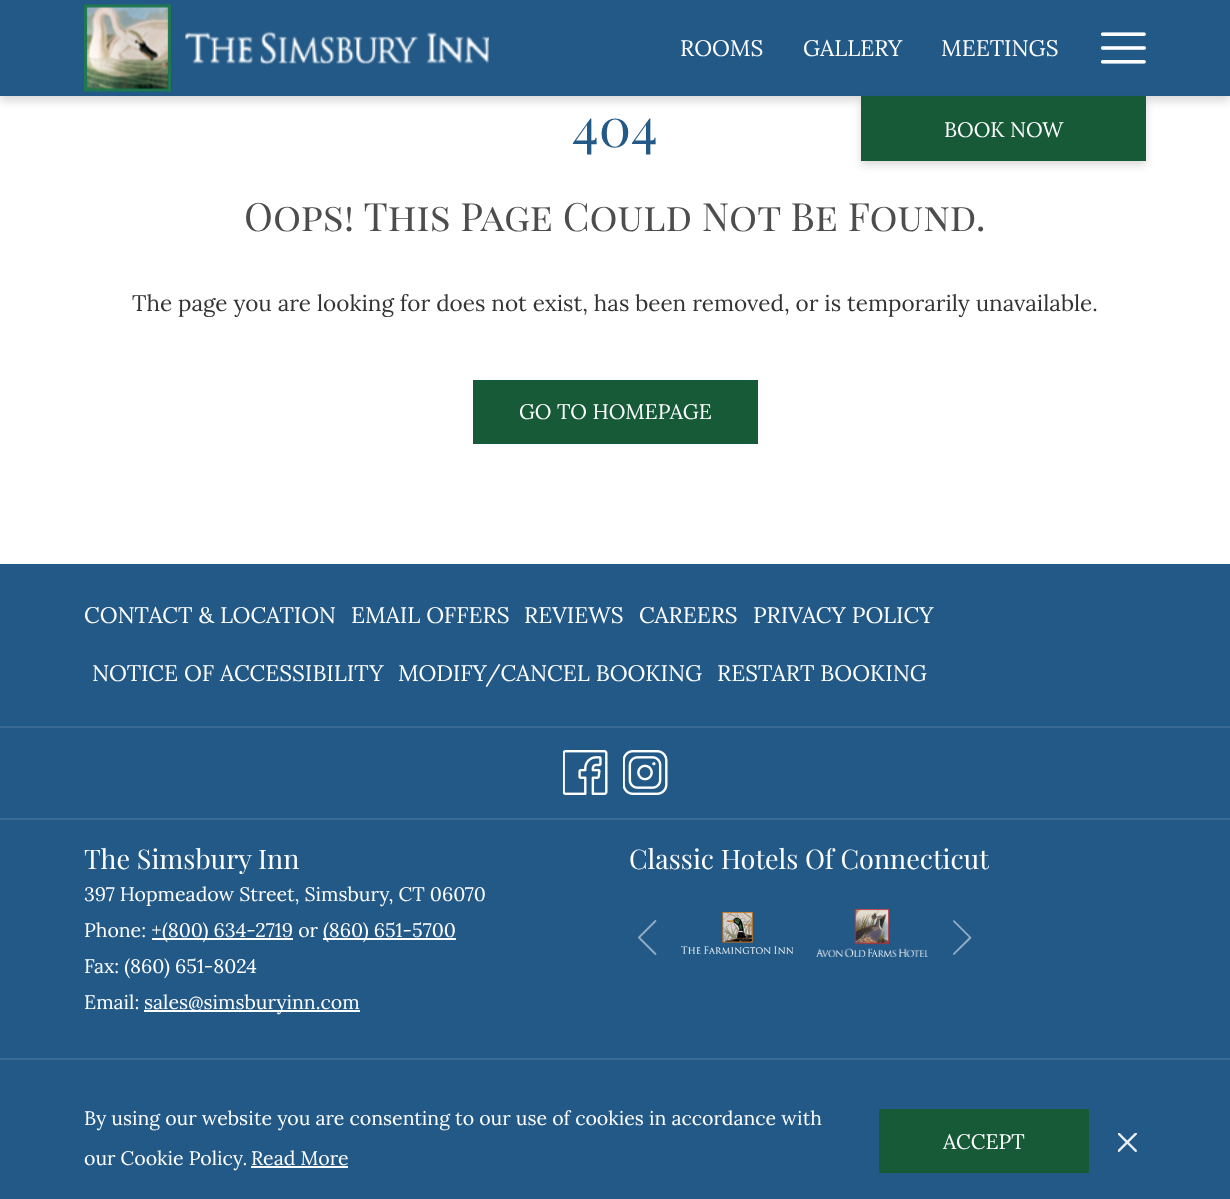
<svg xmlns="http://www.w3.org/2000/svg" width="1230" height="1199">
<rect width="100%" height="100%" fill="#fff"/>
<rect y="5" width="1230" height="96" fill="#00000026" filter="blur(4.5px)"/>
<rect width="1230" height="96" fill="#225987"/>
<image x="84" y="4" width="405" height="88" href="media/1.png"/>
<text x="680" y="56" style="font-family:Lora;font-size:22.5px;fill:#fff">ROOMS</text>
<text x="803" y="56" style="font-family:Lora;font-size:22.5px;fill:#fff">GALLERY</text>
<text x="941" y="56" style="font-family:Lora;font-size:22.5px;fill:#fff">MEETINGS</text>
<image x="1101" y="32" width="45" height="32" href="media/2.png"/>
<rect x="861" y="101" width="285" height="64" fill="#00000026" filter="blur(4.5px)"/>
<rect x="861" y="96" width="285" height="65" fill="#165a38"/>
<text x="944" y="137" style="font-family:Lora;font-size:21px;fill:#fff">BOOK NOW</text>
<text x="572" y="147" style="font-family:Playfair Display;font-size:54px;fill:#225987">404</text>
<text x="244" y="231" style="font-family:Playfair Display SC;font-size:39px;fill:#4d4d4d">Oops! This Page Could Not Be Found.</text>
<text x="132" y="311" style="font-family:Lora;font-size:22.5px;fill:#333">The page you are looking for does not exist, has been removed, or is temporarily unavailable.</text>
<rect x="473" y="380" width="285" height="64" fill="#165a38"/>
<text x="519" y="419" style="font-family:Lora;font-size:21px;fill:#fff">GO TO HOMEPAGE</text>
<rect y="564" width="1230" height="635" fill="#225987"/>
<rect y="726" width="1230" height="2" fill="#386a93"/>
<text x="84" y="623" style="font-family:Lora;font-size:22.5px;fill:#fff">CONTACT &amp; LOCATION</text>
<text x="351" y="623" style="font-family:Lora;font-size:22.5px;fill:#fff">EMAIL OFFERS</text>
<text x="524" y="623" style="font-family:Lora;font-size:22.5px;fill:#fff">REVIEWS</text>
<text x="639" y="623" style="font-family:Lora;font-size:22.5px;fill:#fff">CAREERS</text>
<text x="753" y="623" style="font-family:Lora;font-size:22.5px;fill:#fff">PRIVACY POLICY</text>
<text x="92" y="681" style="font-family:Lora;font-size:22.5px;fill:#fff">NOTICE OF ACCESSIBILITY</text>
<text x="398" y="681" style="font-family:Lora;font-size:22.5px;fill:#fff">MODIFY/CANCEL BOOKING</text>
<text x="717" y="681" style="font-family:Lora;font-size:22.5px;fill:#fff">RESTART BOOKING</text>
<rect y="818" width="1230" height="2" fill="#386a93"/>
<image x="563" y="750" width="45" height="45" href="media/3.png"/>
<image x="623" y="750" width="45" height="45" href="media/4.png"/>
<rect y="1058" width="1230" height="2" fill="#386a93"/>
<text x="84" y="869" style="font-family:Playfair Display;font-size:27px;fill:#fff">The Simsbury Inn</text>
<text x="84" y="901" style="font-family:Lora;font-size:19.5px;fill:#fff">397 Hopmeadow Street, Simsbury, CT 06070</text>
<text x="84" y="937" style="font-family:Lora;font-size:19.5px;fill:#fff">Phone: +</text>
<rect x="152" y="938" width="141" height="2" fill="#fff"/>
<text x="162" y="937" style="font-family:Lora;font-size:19.5px;fill:#fff">(800) 634-2719 or</text>
<rect x="323" y="938" width="133" height="2" fill="#fff"/>
<text x="323" y="937" style="font-family:Lora;font-size:19.5px;fill:#fff">(860) 651-5700</text>
<text x="84" y="973" style="font-family:Lora;font-size:19.5px;fill:#fff">Fax: (860) 651-8024</text>
<text x="84" y="1009" style="font-family:Lora;font-size:19.5px;fill:#fff">Email:</text>
<rect x="144" y="1010" width="216" height="2" fill="#fff"/>
<text x="144" y="1009" style="font-family:Lora;font-size:19.5px;fill:#fff">sales@simsburyinn.com</text>
<text x="629" y="869" style="font-family:Playfair Display;font-size:27px;fill:#fff">Classic Hotels Of Connecticut</text>
<image x="638" y="920" width="19" height="35" href="media/5.png"/>
<image x="681" y="912" width="113" height="42" href="media/6.png"/>
<image x="816" y="909" width="113" height="48" href="media/7.png"/>
<path d="M969 937.5l-16 16c-.5 1 1 2 1.5 1l14-13.5c1-1.5 4-3 2.5-4l-16.5-16.5c-1-1-2 .5-1.5 1z" fill="#91acc3"/>
<text x="84" y="1125" style="font-family:Lora;font-size:19.5px;fill:#fff">By using our website you are consenting to our use of cookies in accordance with</text>
<text x="84" y="1165" style="font-family:Lora;font-size:19.5px;fill:#fff">our Cookie Policy.</text>
<text x="251" y="1165" style="font-family:Lora;font-size:19.5px;fill:#fff">Read More</text>
<rect x="251" y="1166" width="97" height="2" fill="#fff"/>
<rect x="879" y="1109" width="210" height="64" fill="#165a38"/>
<text x="943" y="1149" style="font-family:Lora;font-size:21px;fill:#fff">ACCEPT</text>
<image x="1118" y="1133" width="19" height="19" href="media/8.png"/>
</svg>
